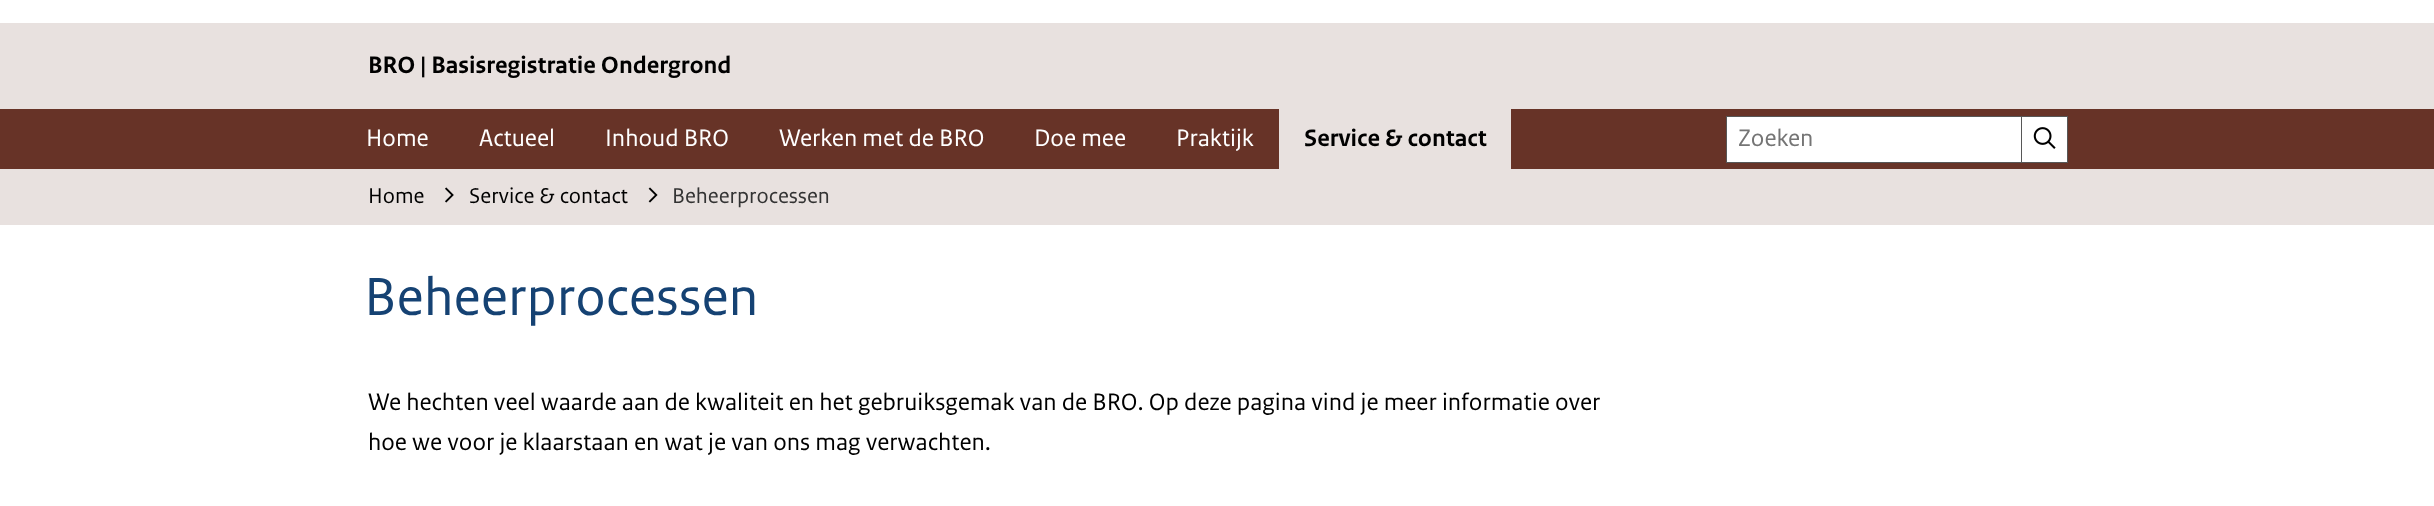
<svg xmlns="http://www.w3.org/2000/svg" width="2434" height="506">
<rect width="100%" height="100%" fill="#fff"/>
<rect y="23" width="2434" height="86" fill="#e8e1df"/>
<text x="368" y="73" style="font-family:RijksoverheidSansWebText;font-size:25px;font-weight:bold;fill:#000">BRO | Basisregistratie Ondergrond</text>
<rect y="109" width="2434" height="60" fill="#673327"/>
<text x="366" y="146" style="font-family:RijksoverheidSansWebText;font-size:25px;fill:#fff">Home</text>
<text x="479" y="146" style="font-family:RijksoverheidSansWebText;font-size:25px;fill:#fff">Actueel</text>
<text x="605" y="146" style="font-family:RijksoverheidSansWebText;font-size:25px;fill:#fff">Inhoud BRO</text>
<text x="779" y="146" style="font-family:RijksoverheidSansWebText;font-size:25px;fill:#fff">Werken met de BRO</text>
<text x="1034" y="146" style="font-family:RijksoverheidSansWebText;font-size:25px;fill:#fff">Doe mee</text>
<text x="1176" y="146" style="font-family:RijksoverheidSansWebText;font-size:25px;fill:#fff">Praktijk</text>
<rect x="1279" y="109" width="232" height="60" fill="#e8e1df"/>
<text x="1304" y="146" style="font-family:RijksoverheidSansWebText;font-size:25px;font-weight:bold;fill:#000">Service &amp; contact</text>
<rect x="1727" y="117" width="294" height="45" fill="#fff"/>
<rect x="1726.5" y="116.5" width="296" height="46" fill="none" stroke="#575757"/>
<text x="1738" y="146" style="font-family:RijksoverheidSansWebText;font-size:25px;fill:#757575">Zoeken</text>
<rect x="2021.5" y="116.5" width="46" height="46" fill="#fff" stroke="#575757"/>
<image x="2033" y="127" width="23" height="22" href="media/1.png"/>
<rect y="169" width="2434" height="56" fill="#e8e1df"/>
<text x="368" y="203" style="font-family:RijksoverheidSansWebText;font-size:22.5px;fill:#000">Home</text>
<image x="445" y="187" width="9" height="16" href="media/2.png"/>
<text x="469" y="203" style="font-family:RijksoverheidSansWebText;font-size:22.5px;fill:#000">Service &amp; contact</text>
<image x="648" y="187" width="10" height="16" href="media/3.png"/>
<text x="672" y="203" style="font-family:RijksoverheidSansWebText;font-size:22.5px;fill:#333">Beheerprocessen</text>
<text x="364" y="315" style="font-family:RijksoverheidSansWebText;font-size:56.25px;fill:#154273">Beheerprocessen</text>
<text x="368" y="410" style="font-family:RijksoverheidSansWebText;font-size:25px;fill:#000">We hechten veel waarde aan de kwaliteit en het gebruiksgemak van de BRO. Op deze pagina vind je meer informatie over</text>
<text x="368" y="450" style="font-family:RijksoverheidSansWebText;font-size:25px;fill:#000">hoe we voor je klaarstaan en wat je van ons mag verwachten.</text>
</svg>
